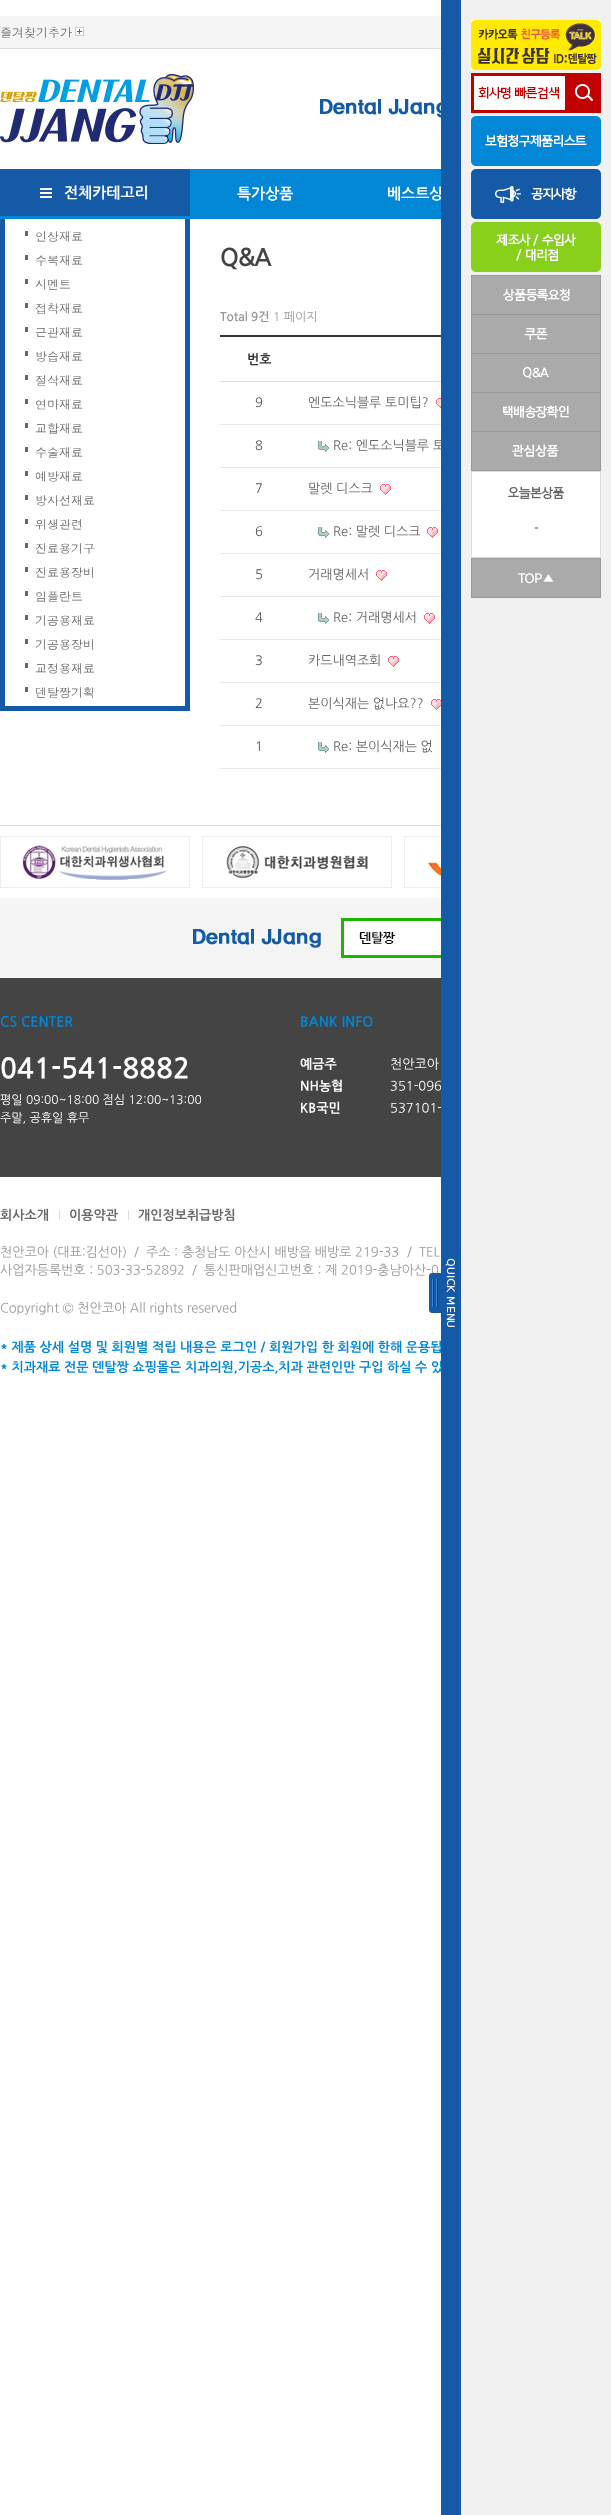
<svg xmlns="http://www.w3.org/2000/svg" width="611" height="2515">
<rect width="100%" height="100%" fill="#fff"/>
<rect y="16" width="441" height="32" fill="#f5f5f5"/>
<rect y="48" width="441" height="1" fill="#ddd"/>
<image x="75" y="27" width="9" height="9" href="media/1.png"/>
<text x="0" y="37" style="font-family:Dotum;font-size:12px;fill:#666">즐겨찾기추가</text>
<image x="0" y="74" width="194" height="70" href="media/2.png"/>
<image x="320" y="99" width="121" height="19" href="media/3.png"/>
<rect x="185" y="216" width="5" height="495" fill="#155aa6"/>
<rect y="706" width="190" height="5" fill="#155aa6"/>
<rect y="216" width="5" height="495" fill="#155aa6"/>
<rect y="169" width="441" height="50" fill="#0187d5"/>
<rect y="169" width="190" height="47" fill="#155aa6"/>
<image x="40" y="188" width="12" height="10" href="media/4.png"/>
<text x="64" y="198" style="font-family:NanumGothic;font-size:15px;font-weight:bold;fill:#fff">전체카테고리</text>
<text x="237" y="199" style="font-family:NanumGothic;font-size:15px;font-weight:bold;fill:#fff">특가상품</text>
<text x="387" y="199" style="font-family:NanumGothic;font-size:15px;font-weight:bold;fill:#fff">베스트상</text>
<rect x="25" y="231" width="3" height="5" fill="#666"/>
<text x="35" y="241" style="font-family:Dotum;font-size:12px;fill:#666">인상재료</text>
<rect x="25" y="255" width="3" height="5" fill="#666"/>
<text x="35" y="265" style="font-family:Dotum;font-size:12px;fill:#666">수복재료</text>
<rect x="25" y="279" width="3" height="5" fill="#666"/>
<text x="35" y="289" style="font-family:Dotum;font-size:12px;fill:#666">시멘트</text>
<rect x="25" y="303" width="3" height="5" fill="#666"/>
<text x="35" y="313" style="font-family:Dotum;font-size:12px;fill:#666">접착재료</text>
<rect x="25" y="327" width="3" height="5" fill="#666"/>
<text x="35" y="337" style="font-family:Dotum;font-size:12px;fill:#666">근관재료</text>
<rect x="25" y="351" width="3" height="5" fill="#666"/>
<text x="35" y="361" style="font-family:Dotum;font-size:12px;fill:#666">방습재료</text>
<rect x="25" y="375" width="3" height="5" fill="#666"/>
<text x="35" y="385" style="font-family:Dotum;font-size:12px;fill:#666">절삭재료</text>
<rect x="25" y="399" width="3" height="5" fill="#666"/>
<text x="35" y="409" style="font-family:Dotum;font-size:12px;fill:#666">연마재료</text>
<rect x="25" y="423" width="3" height="5" fill="#666"/>
<text x="35" y="433" style="font-family:Dotum;font-size:12px;fill:#666">교합재료</text>
<rect x="25" y="447" width="3" height="5" fill="#666"/>
<text x="35" y="457" style="font-family:Dotum;font-size:12px;fill:#666">수술재료</text>
<rect x="25" y="471" width="3" height="5" fill="#666"/>
<text x="35" y="481" style="font-family:Dotum;font-size:12px;fill:#666">예방재료</text>
<rect x="25" y="495" width="3" height="5" fill="#666"/>
<text x="35" y="505" style="font-family:Dotum;font-size:12px;fill:#666">방사선재료</text>
<rect x="25" y="519" width="3" height="5" fill="#666"/>
<text x="35" y="529" style="font-family:Dotum;font-size:12px;fill:#666">위생관련</text>
<rect x="25" y="543" width="3" height="5" fill="#666"/>
<text x="35" y="553" style="font-family:Dotum;font-size:12px;fill:#666">진료용기구</text>
<rect x="25" y="567" width="3" height="5" fill="#666"/>
<text x="35" y="577" style="font-family:Dotum;font-size:12px;fill:#666">진료용장비</text>
<rect x="25" y="591" width="3" height="5" fill="#666"/>
<text x="35" y="601" style="font-family:Dotum;font-size:12px;fill:#666">임플란트</text>
<rect x="25" y="615" width="3" height="5" fill="#666"/>
<text x="35" y="625" style="font-family:Dotum;font-size:12px;fill:#666">기공용재료</text>
<rect x="25" y="639" width="3" height="5" fill="#666"/>
<text x="35" y="649" style="font-family:Dotum;font-size:12px;fill:#666">기공용장비</text>
<rect x="25" y="663" width="3" height="5" fill="#666"/>
<text x="35" y="673" style="font-family:Dotum;font-size:12px;fill:#666">교정용재료</text>
<rect x="25" y="687" width="3" height="5" fill="#666"/>
<text x="35" y="697" style="font-family:Dotum;font-size:12px;fill:#666">덴탈짱기획</text>
<text x="220" y="266" style="font-family:NanumGothic;font-size:24px;font-weight:bold;letter-spacing:-1px;fill:#444">Q&amp;A</text>
<text x="220" y="321" style="font-family:NanumGothic;font-size:12px;font-weight:bold;fill:#999">Total 9건</text>
<text x="273" y="321" style="font-family:NanumGothic;font-size:12px;fill:#999">1 페이지</text>
<rect x="220" y="335" width="221" height="2" fill="#333"/>
<text x="247" y="364" style="font-family:NanumGothic;font-size:13px;font-weight:bold;fill:#333">번호</text>
<rect x="220" y="381" width="221" height="1" fill="#ddd"/>
<text x="255" y="407" style="font-family:NanumGothic;font-size:13px;fill:#545454">9</text>
<rect x="220" y="424" width="221" height="1" fill="#e9e9e9"/>
<text x="308" y="407" style="font-family:NanumGothic;font-size:13px;fill:#666">엔도소닉블루 토미팁?</text>
<image x="436" y="398" width="5" height="10" href="media/5.png"/>
<text x="255" y="450" style="font-family:NanumGothic;font-size:13px;fill:#545454">8</text>
<rect x="220" y="467" width="221" height="1" fill="#e9e9e9"/>
<image x="318" y="441" width="11" height="11" href="media/6.png"/>
<text x="333" y="450" style="font-family:NanumGothic;font-size:13px;fill:#666">Re: 엔도소닉블루 토</text>
<text x="255" y="493" style="font-family:NanumGothic;font-size:13px;fill:#545454">7</text>
<rect x="220" y="510" width="221" height="1" fill="#e9e9e9"/>
<text x="308" y="493" style="font-family:NanumGothic;font-size:13px;fill:#666">말렛 디스크</text>
<image x="380" y="484" width="11" height="11" href="media/7.png"/>
<text x="255" y="536" style="font-family:NanumGothic;font-size:13px;fill:#545454">6</text>
<rect x="220" y="553" width="221" height="1" fill="#e9e9e9"/>
<image x="318" y="527" width="11" height="11" href="media/6.png"/>
<text x="333" y="536" style="font-family:NanumGothic;font-size:13px;fill:#666">Re: 말렛 디스크</text>
<image x="427" y="527" width="11" height="11" href="media/7.png"/>
<text x="255" y="579" style="font-family:NanumGothic;font-size:13px;fill:#545454">5</text>
<rect x="220" y="596" width="221" height="1" fill="#e9e9e9"/>
<text x="308" y="579" style="font-family:NanumGothic;font-size:13px;fill:#666">거래명세서</text>
<image x="376" y="570" width="11" height="11" href="media/7.png"/>
<text x="255" y="622" style="font-family:NanumGothic;font-size:13px;fill:#545454">4</text>
<rect x="220" y="639" width="221" height="1" fill="#e9e9e9"/>
<image x="318" y="613" width="11" height="11" href="media/6.png"/>
<text x="333" y="622" style="font-family:NanumGothic;font-size:13px;fill:#666">Re: 거래명세서</text>
<image x="424" y="613" width="11" height="11" href="media/7.png"/>
<text x="255" y="665" style="font-family:NanumGothic;font-size:13px;fill:#545454">3</text>
<rect x="220" y="682" width="221" height="1" fill="#e9e9e9"/>
<text x="308" y="665" style="font-family:NanumGothic;font-size:13px;fill:#666">카드내역조회</text>
<image x="388" y="656" width="11" height="11" href="media/7.png"/>
<text x="255" y="708" style="font-family:NanumGothic;font-size:13px;fill:#545454">2</text>
<rect x="220" y="725" width="221" height="1" fill="#e9e9e9"/>
<text x="308" y="708" style="font-family:NanumGothic;font-size:13px;fill:#666">본이식재는 없나요??</text>
<image x="431" y="699" width="10" height="11" href="media/8.png"/>
<text x="255" y="751" style="font-family:NanumGothic;font-size:13px;fill:#545454">1</text>
<rect x="220" y="768" width="221" height="1" fill="#e9e9e9"/>
<image x="318" y="742" width="11" height="11" href="media/6.png"/>
<text x="333" y="751" style="font-family:NanumGothic;font-size:13px;fill:#666">Re: 본이식재는 없</text>
<rect x="461" width="150" height="2515" fill="#f1f1f1"/>
<rect y="978" width="441" height="199" fill="#444"/>
<text x="390" y="1090" style="font-family:'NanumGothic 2';font-size:13px;fill:#fff">351-096</text>
<text x="390" y="1112" style="font-family:'NanumGothic 2';font-size:13px;fill:#fff">537101-</text>
<text x="0" y="1351" style="font-family:'NanumGothic 2';font-size:13px;font-weight:bold;fill:#0187d5">* 제품 상세 설명 및 회원별 적립 내용은 로그인 / 회원가입 한 회원에 한해 운용됩</text>
<text x="0" y="1371" style="font-family:'NanumGothic 2';font-size:13px;font-weight:bold;fill:#0187d5">* 치과재료 전문 덴탈짱 쇼핑몰은 치과의원,기공소,치과 관련인만 구입 하실 수 있</text>
<rect x="441" width="20" height="2515" fill="#155aa6"/>
<image x="471" y="20" width="130" height="50" href="media/9.png"/>
<image x="471" y="73" width="130" height="40" href="media/10.png"/>
<image x="471" y="116" width="130" height="50" href="media/11.png"/>
<image x="471" y="169" width="130" height="50" href="media/12.png"/>
<image x="471" y="222" width="130" height="50" href="media/13.png"/>
<image x="471" y="275" width="130" height="39" href="media/14.png"/>
<image x="471" y="314" width="130" height="39" href="media/15.png"/>
<image x="471" y="353" width="130" height="39" href="media/16.png"/>
<image x="471" y="392" width="130" height="39" href="media/17.png"/>
<image x="471" y="431" width="130" height="40" href="media/18.png"/>
<rect x="471.5" y="471.5" width="129" height="86" fill="#fff" stroke="#ddd"/>
<image x="508" y="486" width="56" height="13" href="media/19.png"/>
<text x="534" y="533" style="font-family:NanumGothic;font-size:13px;fill:#545454">-</text>
<image x="471" y="558" width="130" height="40" href="media/20.png"/>
<text x="204" y="1274" style="font-family:'NanumGothic 2';font-size:13px;fill:#999">통신판매업신고번호 : 제 2019-충남아산-0</text>
<image x="429" y="1258" width="26" height="69" href="media/21.png"/>
<rect y="825" width="441" height="1" fill="#ddd"/>
<image x="0" y="836" width="190" height="52" href="media/22.png"/>
<image x="202" y="836" width="190" height="52" href="media/23.png"/>
<image x="404" y="836" width="37" height="52" href="media/24.png"/>
<rect y="898" width="441" height="80" fill="#f5f5f5"/>
<image x="193" y="918" width="248" height="40" href="media/25.png"/>
<text x="0" y="1026" style="font-family:'NanumGothic 2';font-size:14px;font-weight:bold;fill:#0187d5">CS CENTER</text>
<text x="0" y="1077" style="font-family:'NanumGothic 2';font-size:28px;font-weight:bold;fill:#fff">041-541-8882</text>
<text x="0" y="1104" style="font-family:NanumGothic;font-size:12px;fill:#fff">평일 09:00~18:00 점심 12:00~13:00</text>
<text x="0" y="1122" style="font-family:NanumGothic;font-size:12px;fill:#fff">주말, 공휴일 휴무</text>
<text x="300" y="1026" style="font-family:'NanumGothic 2';font-size:14px;font-weight:bold;fill:#0187d5">BANK INFO</text>
<text x="300" y="1068" style="font-family:'NanumGothic 2';font-size:13px;font-weight:bold;fill:#fff">예금주</text>
<text x="390" y="1068" style="font-family:'NanumGothic 2';font-size:13px;fill:#fff">천안코아</text>
<text x="300" y="1090" style="font-family:'NanumGothic 2';font-size:13px;font-weight:bold;fill:#fff">NH농협</text>
<text x="300" y="1112" style="font-family:'NanumGothic 2';font-size:13px;font-weight:bold;fill:#fff">KB국민</text>
<text x="0" y="1219" style="font-family:'NanumGothic 2';font-size:13px;font-weight:bold;fill:#666">회사소개</text>
<rect x="59" y="1210" width="1" height="10" fill="#ddd"/>
<text x="69" y="1219" style="font-family:'NanumGothic 2';font-size:13px;font-weight:bold;fill:#666">이용약관</text>
<rect x="128" y="1210" width="1" height="10" fill="#ddd"/>
<text x="138" y="1219" style="font-family:'NanumGothic 2';font-size:13px;font-weight:bold;fill:#666">개인정보취급방침</text>
<text x="0" y="1256" style="font-family:'NanumGothic 2';font-size:13px;fill:#999">천안코아 (대표:김선아)</text>
<text x="134" y="1256" style="font-family:'NanumGothic 2';font-size:13px;fill:#999">/</text>
<text x="146" y="1256" style="font-family:'NanumGothic 2';font-size:13px;fill:#999">주소 : 충청남도 아산시 배방읍 배방로 219-33</text>
<text x="407" y="1256" style="font-family:'NanumGothic 2';font-size:13px;fill:#999">/</text>
<text x="419" y="1256" style="font-family:'NanumGothic 2';font-size:13px;fill:#999">TEL</text>
<text x="0" y="1274" style="font-family:'NanumGothic 2';font-size:13px;fill:#999">사업자등록번호 : 503-33-52892</text>
<text x="192" y="1274" style="font-family:'NanumGothic 2';font-size:13px;fill:#999">/</text>
<text x="0" y="1312" style="font-family:'NanumGothic 2';font-size:13px;fill:#999">Copyright © 천안코아 All rights reserved</text>
</svg>
